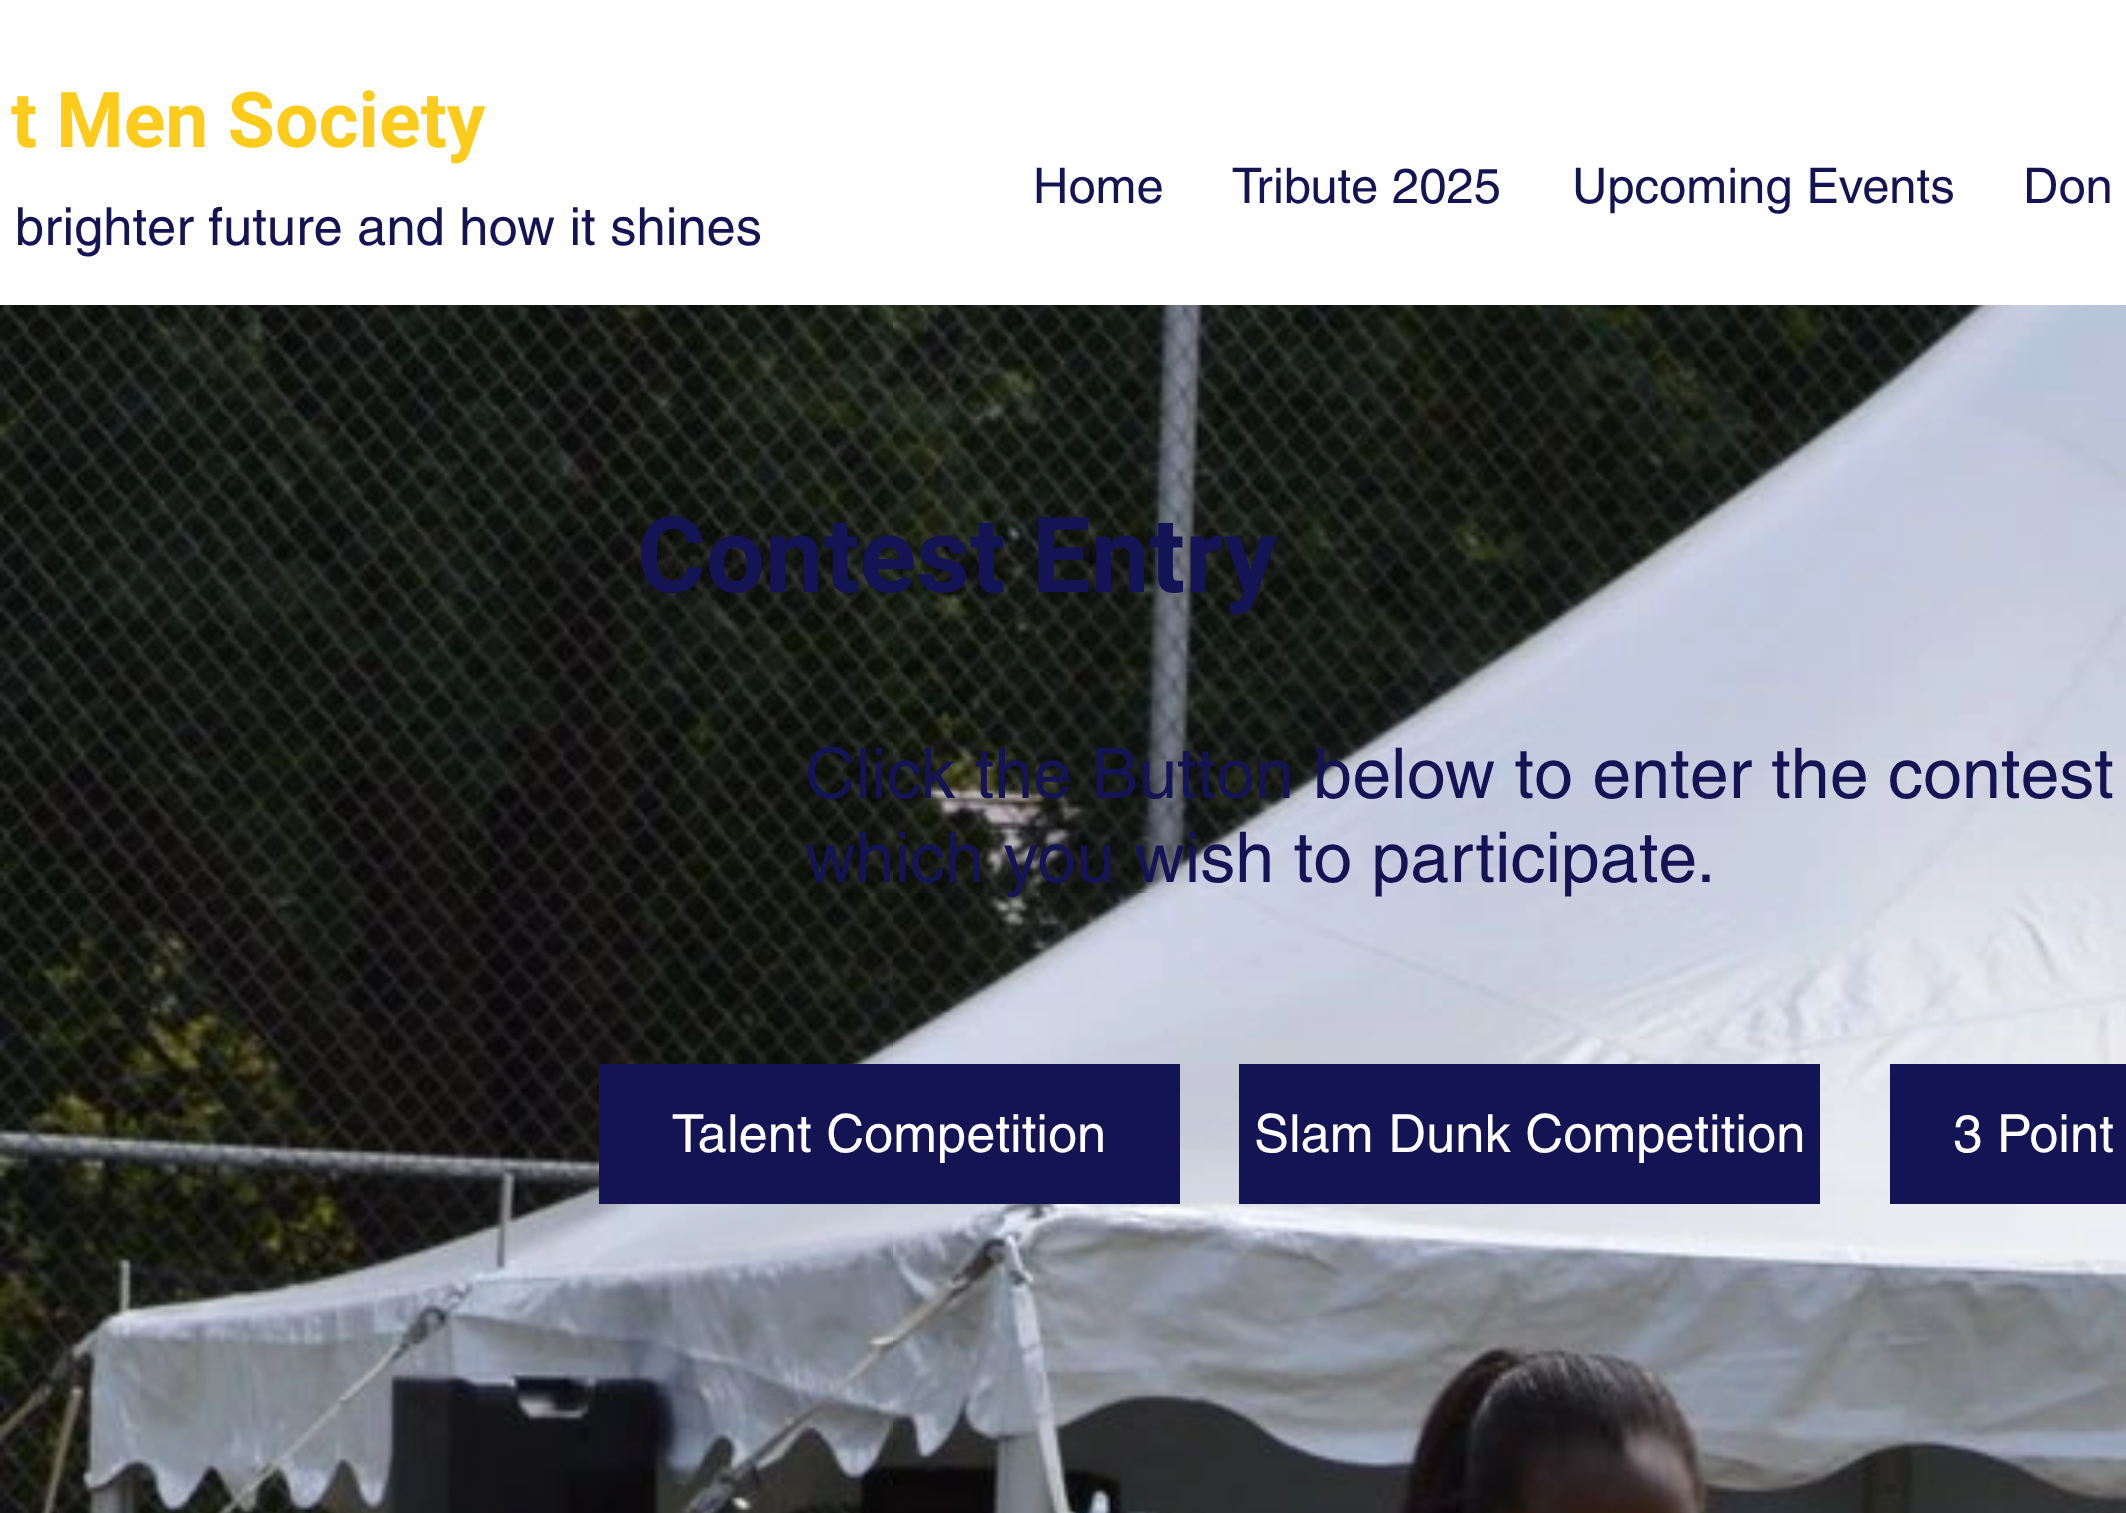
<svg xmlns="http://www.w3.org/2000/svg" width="2126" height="1513">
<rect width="100%" height="100%" fill="#fff"/>
<text x="11" y="147" style="font-family:Roboto;font-size:77px;font-weight:bold;fill:#fccb1b">t Men Society</text>
<text x="1033" y="203" style="font-family:helvetica;font-size:49px;fill:#141353">Home</text>
<text x="1232" y="203" style="font-family:helvetica;font-size:49px;fill:#141353">Tribute 2025</text>
<text x="1572" y="203" style="font-family:helvetica;font-size:49px;fill:#141353">Upcoming Events</text>
<text x="2023" y="203" style="font-family:helvetica;font-size:49px;fill:#141353">Don</text>
<text x="15" y="245" style="font-family:helvetica;font-size:52.5px;fill:#141353">brighter future and how it shines</text>
<image x="0" y="305" width="2126" height="1208" href="media/1.png"/>
<text x="637" y="592" style="font-family:Roboto;font-size:105px;font-weight:bold;fill:#141353">Contest Entry</text>
<rect x="599" y="1064" width="581" height="140" fill="#141353"/>
<text x="672" y="1152" style="font-family:helvetica;font-size:52.5px;fill:#fff">Talent Competition</text>
<rect x="1239" y="1064" width="581" height="140" fill="#141353"/>
<text x="1254" y="1152" style="font-family:helvetica;font-size:52.5px;fill:#fff">Slam Dunk Competition</text>
<rect x="1890" y="1064" width="236" height="140" fill="#141353"/>
<text x="1953" y="1152" style="font-family:helvetica;font-size:52.5px;fill:#fff">3 Point</text>
<text x="805" y="798" style="font-family:helvetica;font-size:70px;fill:#141353">Click the Button below to enter the contest</text>
<text x="805" y="882" style="font-family:helvetica;font-size:70px;fill:#141353">which you wish to participate.</text>
</svg>
